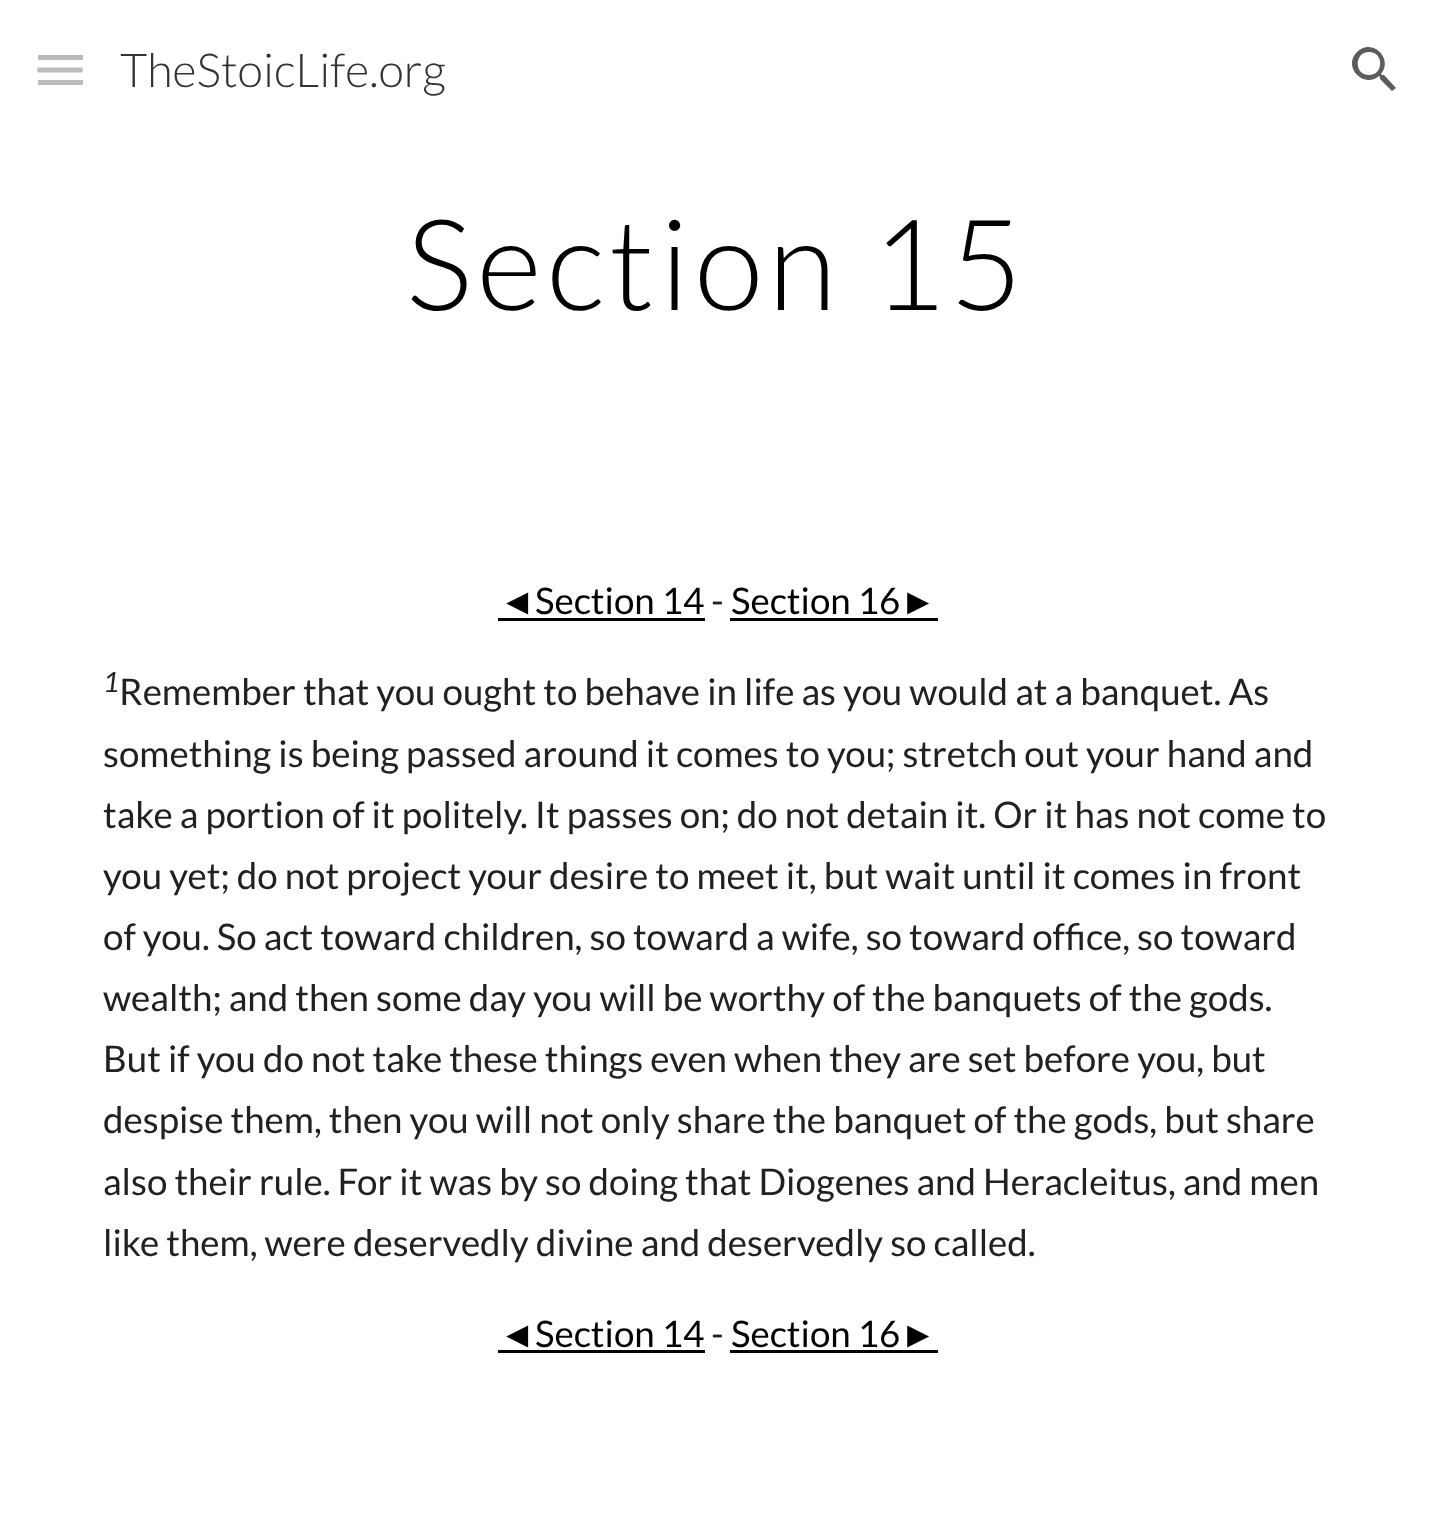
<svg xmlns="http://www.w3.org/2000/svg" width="1435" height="1519">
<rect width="100%" height="100%" fill="#fff"/>
<rect x="38" y="55" width="45" height="5" fill="#bbb"/>
<path d="M37.5 70h45" fill="none" stroke="#bbb" stroke-width="5"/>
<rect x="38" y="80" width="45" height="5" fill="#bbb"/>
<text x="120" y="87" style="font-family:Lato;font-size:46.75px;font-weight:300;fill:#333">TheStoicLife.org</text>
<path d="M1384 75h-2l-1-1c13-15-9-37-24-22c-15 15 7 37 22 24l1 1v2l12 12l4-3zm-15 0c-15 0-15-23 0-23c15 0 15 23 0 23z" fill="#5c5c5c"/>
<text x="406" y="310" style="font-family:Lato;font-size:126.5px;font-weight:300;letter-spacing:5px;fill:#000">Section 15</text>
<text x="499" y="614" style="font-family:Liberation Sans;font-size:36.7px;fill:#000">◄</text>
<rect x="498" y="618" width="207" height="3" fill="#000"/>
<text x="535" y="614" style="font-family:Lato;font-size:36.7px;fill:#000">Section 14</text>
<text x="711" y="614" style="font-family:Lato;font-size:36.7px;fill:#212121">-</text>
<text x="731" y="614" style="font-family:Lato;font-size:36.7px;fill:#000">Section 16</text>
<text x="900" y="614" style="font-family:Liberation Sans;font-size:36.7px;fill:#000">►</text>
<rect x="730" y="618" width="208" height="3" fill="#000"/>
<text x="103" y="692" style="font-family:Lato;font-size:28px;font-style:italic;fill:#212121">1</text>
<text x="119" y="705" style="font-family:Lato;font-size:36.7px;fill:#212121">Remember that you ought to behave in life as you would at a banquet. As</text>
<text x="103" y="767" style="font-family:Lato;font-size:36.7px;fill:#212121">something is being passed around it comes to you; stretch out your hand and</text>
<text x="103" y="828" style="font-family:Lato;font-size:36.7px;fill:#212121">take a portion of it politely. It passes on; do not detain it. Or it has not come to</text>
<text x="103" y="889" style="font-family:Lato;font-size:36.7px;fill:#212121">you yet; do not project your desire to meet it, but wait until it comes in front</text>
<text x="103" y="950" style="font-family:Lato;font-size:36.7px;fill:#212121">of you. So act toward children, so toward a wife, so toward office, so toward</text>
<text x="103" y="1011" style="font-family:Lato;font-size:36.7px;fill:#212121">wealth; and then some day you will be worthy of the banquets of the gods.</text>
<text x="103" y="1072" style="font-family:Lato;font-size:36.7px;fill:#212121">But if you do not take these things even when they are set before you, but</text>
<text x="103" y="1133" style="font-family:Lato;font-size:36.7px;fill:#212121">despise them, then you will not only share the banquet of the gods, but share</text>
<text x="103" y="1195" style="font-family:Lato;font-size:36.7px;fill:#212121">also their rule. For it was by so doing that Diogenes and Heracleitus, and men</text>
<text x="103" y="1256" style="font-family:Lato;font-size:36.7px;fill:#212121">like them, were deservedly divine and deservedly so called.</text>
<text x="499" y="1347" style="font-family:Liberation Sans;font-size:36.7px;fill:#000">◄</text>
<rect x="498" y="1350" width="207" height="3" fill="#000"/>
<text x="535" y="1347" style="font-family:Lato;font-size:36.7px;fill:#000">Section 14</text>
<text x="711" y="1347" style="font-family:Lato;font-size:36.7px;fill:#212121">-</text>
<text x="731" y="1347" style="font-family:Lato;font-size:36.7px;fill:#000">Section 16</text>
<text x="900" y="1347" style="font-family:Liberation Sans;font-size:36.7px;fill:#000">►</text>
<rect x="730" y="1350" width="208" height="3" fill="#000"/>
</svg>
